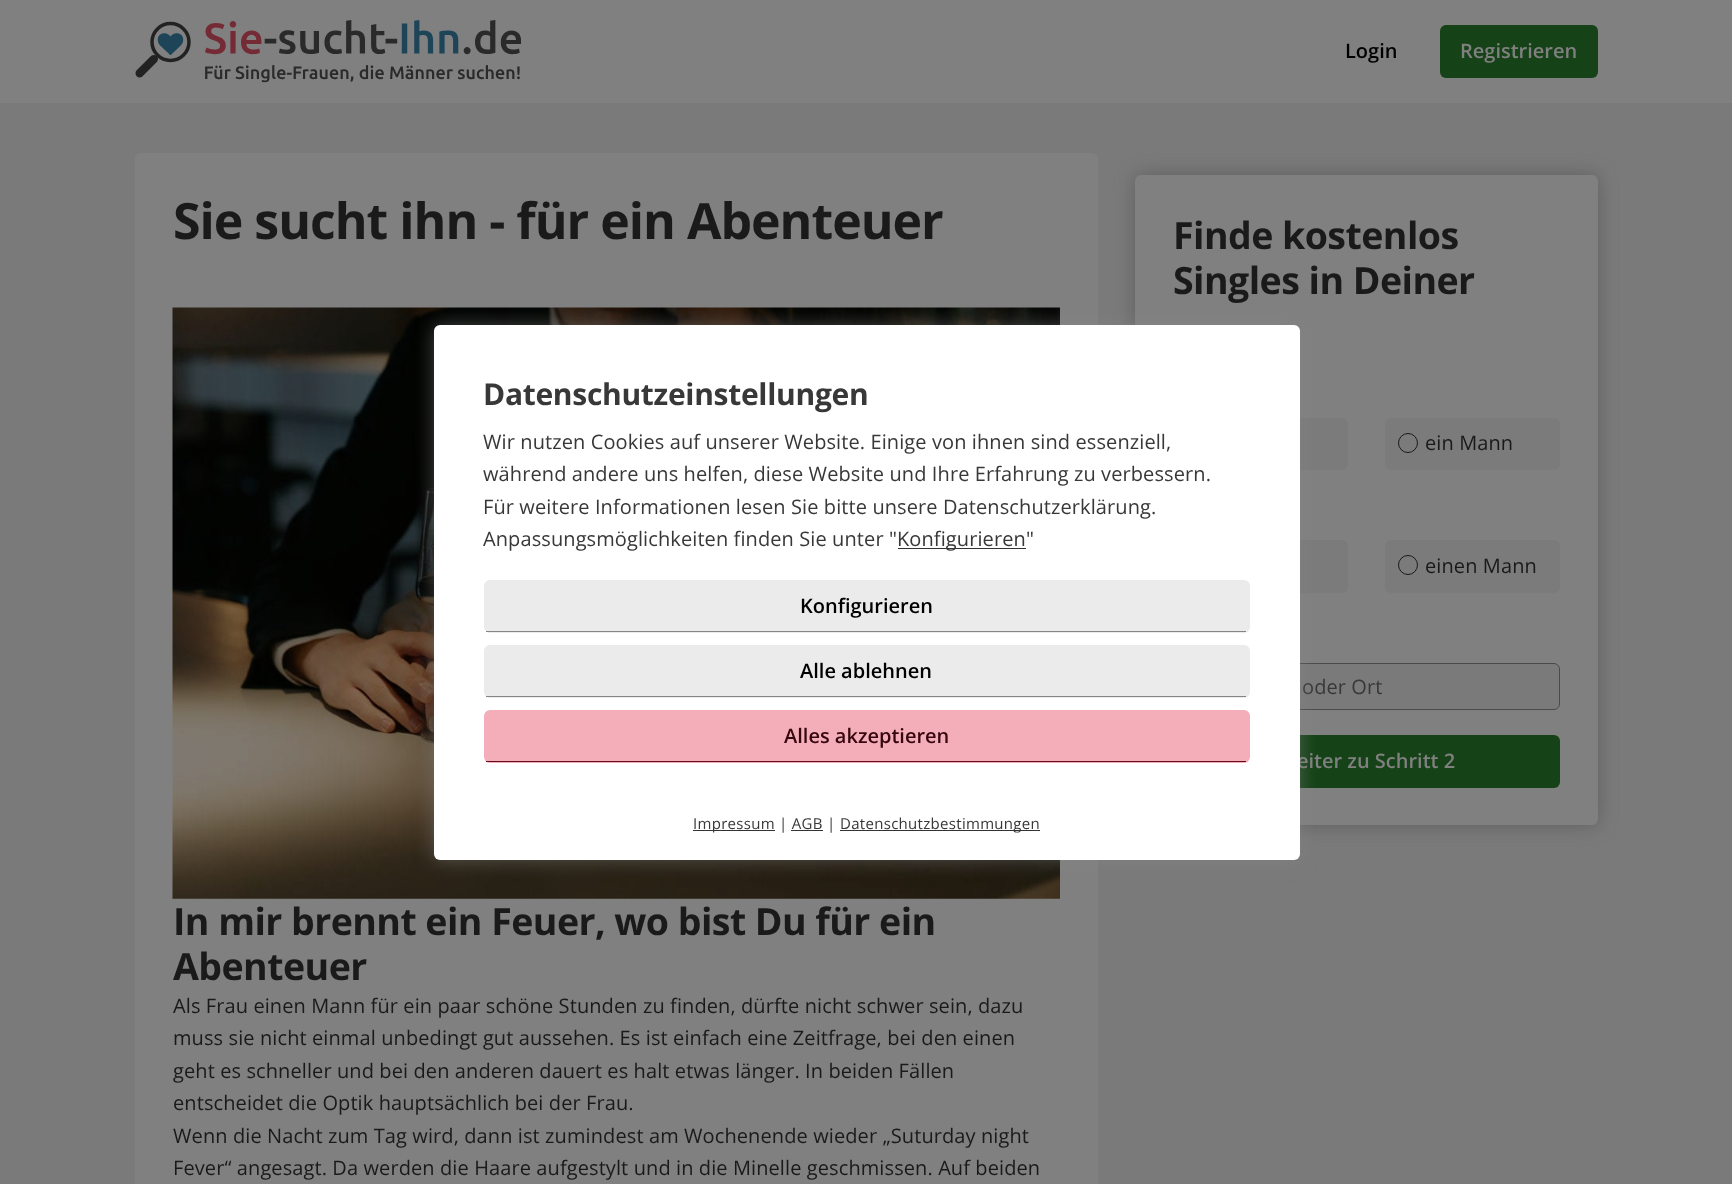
<svg xmlns="http://www.w3.org/2000/svg" width="1732" height="1184">
<rect width="100%" height="100%" fill="#7a7a7a"/>
<rect width="1732" height="103" fill="#808080"/>
<image x="135" y="20" width="386" height="63" href="media/1.png"/>
<text x="1345" y="58" style="font-family:Open Sans;font-size:20px;font-weight:600;fill:#000">Login</text>
<rect x="1440" y="25" width="158" height="53" rx="6" fill="#154216"/>
<text x="1460" y="58" style="font-family:Open Sans;font-size:20px;font-weight:600;fill:#808080">Registrieren</text>
<rect x="135" y="153" width="963" height="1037" rx="6" fill="#808080"/>
<text x="173" y="239" style="font-family:Open Sans;font-size:50px;font-weight:bold;letter-spacing:-1px;fill:#1a1a1a">Sie sucht ihn - für ein Abenteuer</text>
<image x="172" y="307" width="888" height="592" href="media/2.png"/>
<text x="173" y="935" style="font-family:Open Sans;font-size:37.5px;font-weight:bold;letter-spacing:-0.55px;fill:#1a1a1a">In mir brennt ein Feuer, wo bist Du für ein</text>
<text x="173" y="980" style="font-family:Open Sans;font-size:37.5px;font-weight:bold;letter-spacing:-0.55px;fill:#1a1a1a">Abenteuer</text>
<text x="173" y="1013" style="font-family:Open Sans;font-size:20px;letter-spacing:0.1px;fill:#1a1a1a">Als Frau einen Mann für ein paar schöne Stunden zu finden, dürfte nicht schwer sein, dazu</text>
<text x="173" y="1045" style="font-family:Open Sans;font-size:20px;letter-spacing:0.1px;fill:#1a1a1a">muss sie nicht einmal unbedingt gut aussehen. Es ist einfach eine Zeitfrage, bei den einen</text>
<text x="173" y="1078" style="font-family:Open Sans;font-size:20px;letter-spacing:0.1px;fill:#1a1a1a">geht es schneller und bei den anderen dauert es halt etwas länger. In beiden Fällen</text>
<text x="173" y="1110" style="font-family:Open Sans;font-size:20px;letter-spacing:0.1px;fill:#1a1a1a">entscheidet die Optik hauptsächlich bei der Frau.</text>
<text x="173" y="1143" style="font-family:Open Sans;font-size:20px;letter-spacing:0.1px;fill:#1a1a1a">Wenn die Nacht zum Tag wird, dann ist zumindest am Wochenende wieder „Suturday night</text>
<text x="173" y="1175" style="font-family:Open Sans;font-size:20px;letter-spacing:0.1px;fill:#1a1a1a">Fever“ angesagt. Da werden die Haare aufgestylt und in die Minelle geschmissen. Auf beiden</text>
<rect x="1135" y="175" width="463" height="650" rx="6" fill="#44444480" filter="blur(9.5px)"/>
<rect x="1135" y="175" width="463" height="650" rx="6" fill="#808080"/>
<text x="1173" y="249" style="font-family:Open Sans;font-size:37.5px;font-weight:bold;letter-spacing:-0.55px;fill:#1a1a1a">Finde kostenlos</text>
<text x="1173" y="294" style="font-family:Open Sans;font-size:37.5px;font-weight:bold;letter-spacing:-0.55px;fill:#1a1a1a">Singles in Deiner</text>
<rect x="1173" y="418" width="175" height="52" rx="6" fill="#7b7b7b"/>
<rect x="1385" y="418" width="175" height="52" rx="6" fill="#7b7b7b"/>
<circle cx="1408" cy="443" r="9.5" fill="none" stroke="#1a1a1a"/>
<text x="1425" y="450" style="font-family:Open Sans;font-size:20px;letter-spacing:0.1px;fill:#1a1a1a">ein Mann</text>
<rect x="1173" y="540" width="175" height="53" rx="6" fill="#7b7b7b"/>
<rect x="1385" y="540" width="175" height="53" rx="6" fill="#7b7b7b"/>
<circle cx="1408" cy="565" r="9.5" fill="none" stroke="#1a1a1a"/>
<text x="1425" y="573" style="font-family:Open Sans;font-size:20px;letter-spacing:0.1px;fill:#1a1a1a">einen Mann</text>
<rect x="1173.5" y="663.5" width="386" height="46" rx="5.5" fill="#7a7a7a" stroke="#4a4a4a"/>
<text x="1302" y="694" style="font-family:Open Sans;font-size:20px;letter-spacing:0.1px;fill:#383838">oder Ort</text>
<rect x="1173" y="735" width="387" height="53" rx="6" fill="#154216"/>
<text x="1297" y="768" style="font-family:Open Sans;font-size:20px;font-weight:600;fill:#808080">eiter zu Schritt 2</text>
<rect x="434" y="325" width="866" height="535" rx="6" fill="#88888880" filter="blur(9.5px)"/>
<rect x="434" y="325" width="866" height="535" rx="6" fill="#fff"/>
<text x="483" y="405" style="font-family:Open Sans;font-size:30px;font-weight:bold;letter-spacing:-0.3px;fill:#383838">Datenschutzeinstellungen</text>
<text x="483" y="449" style="font-family:Open Sans;font-size:20px;letter-spacing:0.1px;fill:#383838">Wir nutzen Cookies auf unserer Website. Einige von ihnen sind essenziell,</text>
<text x="483" y="481" style="font-family:Open Sans;font-size:20px;letter-spacing:0.1px;fill:#383838">während andere uns helfen, diese Website und Ihre Erfahrung zu verbessern.</text>
<text x="483" y="514" style="font-family:Open Sans;font-size:20px;letter-spacing:0.1px;fill:#383838">Für weitere Informationen lesen Sie bitte unsere Datenschutzerklärung.</text>
<text x="483" y="546" style="font-family:Open Sans;font-size:20px;letter-spacing:0.1px;fill:#383838">Anpassungsmöglichkeiten finden Sie unter "</text>
<rect x="898" y="548" width="128" height="1" fill="#333"/>
<text x="897" y="546" style="font-family:Open Sans;font-size:20px;letter-spacing:0.1px;fill:#383838">Konfigurieren</text>
<text x="1026" y="546" style="font-family:Open Sans;font-size:20px;letter-spacing:0.1px;fill:#383838">"</text>
<rect x="484" y="580" width="766" height="53" rx="6" fill="#ebebeb"/>
<rect x="486" y="631" width="760" height="1" fill="#858585"/>
<text x="800" y="613" style="font-family:Open Sans;font-size:20px;font-weight:600;fill:#000">Konfigurieren</text>
<rect x="484" y="645" width="766" height="53" rx="6" fill="#ebebeb"/>
<rect x="486" y="696" width="760" height="1" fill="#858585"/>
<text x="800" y="678" style="font-family:Open Sans;font-size:20px;font-weight:600;fill:#000">Alle ablehnen</text>
<rect x="484" y="710" width="766" height="53" rx="6" fill="#f4aeb9"/>
<rect x="486" y="761" width="760" height="1" fill="#630d1a"/>
<text x="784" y="743" style="font-family:Open Sans;font-size:20px;font-weight:600;fill:#36070e">Alles akzeptieren</text>
<rect x="693" y="830" width="82" height="1" fill="#333"/>
<text x="693" y="829" style="font-family:Open Sans;font-size:15px;letter-spacing:0.3px;fill:#383838">Impressum</text>
<text x="779" y="829" style="font-family:Open Sans;font-size:15px;letter-spacing:0.3px;fill:#383838">| AGB</text>
<text x="827" y="829" style="font-family:Open Sans;font-size:15px;letter-spacing:0.3px;fill:#383838">|</text>
<rect x="840" y="830" width="200" height="1" fill="#333"/>
<text x="840" y="829" style="font-family:Open Sans;font-size:15px;letter-spacing:0.3px;fill:#383838">Datenschutzbestimmungen</text>
<rect x="791" y="830" width="32" height="1" fill="#333"/>
</svg>
